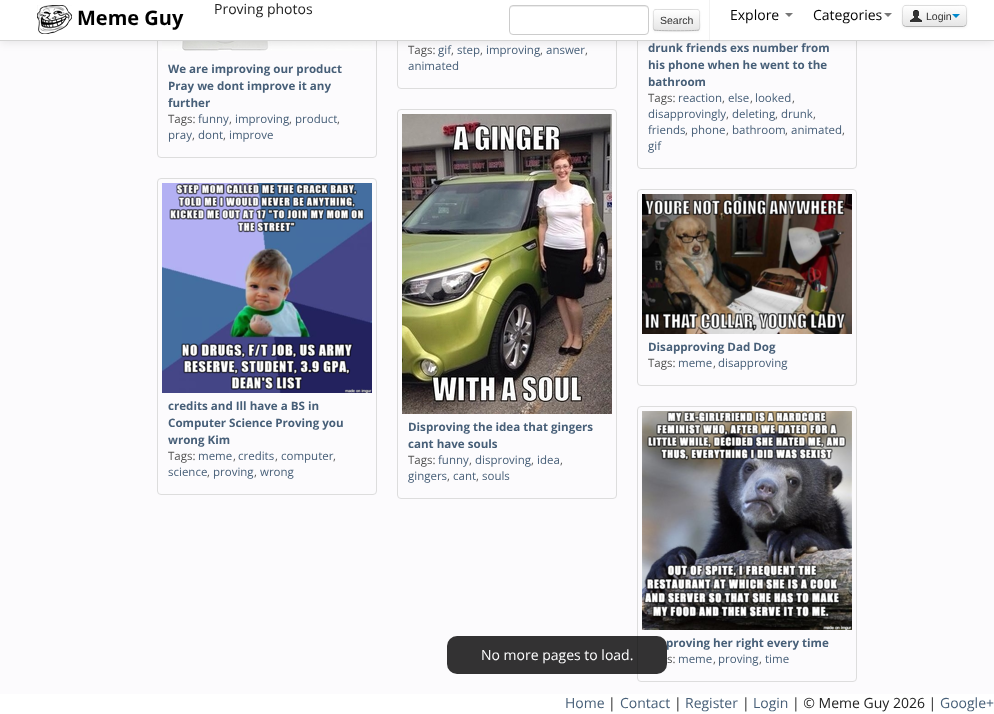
<svg xmlns="http://www.w3.org/2000/svg" width="994" height="714">
<defs>
<clipPath id="clip1"><rect x="653" y="9" width="47" height="22" rx="3"/></clipPath>
<linearGradient id="g1" gradientUnits="userSpaceOnUse" x1="677" y1="10" x2="677" y2="30"><stop offset="0" stop-color="#fff"/><stop offset="1" stop-color="#e6e6e6"/></linearGradient>
<clipPath id="clip2"><rect x="902" y="5" width="65" height="22" rx="4"/></clipPath>
<linearGradient id="g2" gradientUnits="userSpaceOnUse" x1="935" y1="6" x2="935" y2="26"><stop offset="0" stop-color="#fff"/><stop offset="1" stop-color="#e6e6e6"/></linearGradient>
</defs>
<rect width="100%" height="100%" fill="#fcfbfd"/>
<rect x="397.5" y="-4.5" width="219" height="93" rx="3.5" fill="none" stroke="#ddd"/>
<rect x="637.5" y="-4.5" width="219" height="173" rx="3.5" fill="none" stroke="#ddd"/>
<rect x="157.5" y="-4.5" width="219" height="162" rx="3.5" fill="none" stroke="#ddd"/>
<image x="162" y="41" width="210" height="10" href="media/3.png"/>
<rect y="1" width="994" height="41" fill="#0000001a" filter="blur(5px)"/>
<rect width="994" height="40" fill="#fff"/>
<rect y="40" width="994" height="1" fill="#d4d4d4"/>
<image x="37" y="5" width="35" height="29" href="media/1.png"/>
<text x="77" y="25" style="font-family:Open Sans;font-size:20px;font-weight:bold;fill:#000">Meme Guy</text>
<text x="214" y="14" style="font-family:Open Sans;font-size:14px;fill:#222">Proving photos</text>
<path d="M513 7h132c2 0 3 1 3 3c0-2 0-4-2-4h-134c-2 0-2 2-2 4c0-2 1-3 3-3z" fill="#ececec"/>
<rect x="509.5" y="5.5" width="139" height="29" rx="3.5" fill="none" stroke="#ccc"/>
<rect x="653" y="10" width="47" height="22" rx="3" fill="#0000000d" filter="blur(1px)"/>
<rect x="653" y="9" width="47" height="22" rx="3" fill="#f5f5f5"/>
<g clip-path="url(#clip1)">
<rect x="653" y="10" width="47" height="20" fill="url(#g1)"/>
</g>
<path d="M656 11h41c1 0 2 1 2 2c0-5-5-3-9-3h-27c-4 0-9-2-9 3c0-1 1-2 2-2z" fill="#fefefe"/>
<path d="M699 30c-1.5 1-43.5 1-45 0" fill="none" stroke="#b3b3b3"/>
<path d="M654 30c-1.5-2-.5-8-.5-10c0-11.5-2-10.5 9.5-10.5h27c11.5 0 9.5-1 9.5 10.5c0 2 1 8-.5 10" fill="none" stroke="#0000001a"/>
<text x="660" y="24" style="font-family:Liberation Sans;font-size:10.5px;fill:#333">Search</text>
<rect x="709" width="1" height="40" fill="#f2f2f2"/>
<text x="730" y="20" style="font-family:Open Sans;font-size:14px;fill:#000">Explore</text>
<path d="M785 13h8l-4 4z" fill="#777"/>
<text x="813" y="20" style="font-family:Open Sans;font-size:14px;fill:#000">Categories</text>
<path d="M884 13h8l-4 4z" fill="#777"/>
<rect x="902" y="6" width="65" height="22" rx="4" fill="#0000000d" filter="blur(1px)"/>
<rect x="902" y="5" width="65" height="22" rx="4" fill="#f5f5f5"/>
<g clip-path="url(#clip2)">
<rect x="902" y="6" width="65" height="20" fill="url(#g2)"/>
</g>
<path d="M906 7h57c2 0 3 1 3 3c0-6-8-4-12-4h-38c-5 0-13-2-13 4c0-2 1-3 3-3z" fill="#fefefe"/>
<path d="M965.5 25.5l-2 1h-58l-2-1" fill="none" stroke="#b3b3b3"/>
<path d="M903.5 25.5c-2-2-1-7-1-9.5c0-12.5-.5-10.5 13-10.5h38c13.5 0 13-2 13 10.5c0 2.5 1 7.5-1 9.5" fill="none" stroke="#0000001a"/>
<image x="910" y="10" width="12" height="13" href="media/2.png"/>
<text x="926" y="20" style="font-family:Liberation Sans;font-size:10.5px;fill:#333">Login</text>
<path d="M952 14h8l-4 4z" fill="#08c"/>
<text x="408" y="54" style="font-family:Open Sans;font-size:11.5px;fill:#555">Tags:</text>
<text x="438" y="54" style="font-family:Open Sans;font-size:11.5px;fill:#475f78">gif</text>
<text x="451" y="54" style="font-family:Open Sans;font-size:11.5px;fill:#555">,</text>
<text x="457" y="54" style="font-family:Open Sans;font-size:11.5px;fill:#475f78">step</text>
<text x="480" y="54" style="font-family:Open Sans;font-size:11.5px;fill:#555">,</text>
<text x="486" y="54" style="font-family:Open Sans;font-size:11.5px;fill:#475f78">improving</text>
<text x="540" y="54" style="font-family:Open Sans;font-size:11.5px;fill:#555">,</text>
<text x="546" y="54" style="font-family:Open Sans;font-size:11.5px;fill:#475f78">answer</text>
<text x="585" y="54" style="font-family:Open Sans;font-size:11.5px;fill:#555">,</text>
<text x="408" y="70" style="font-family:Open Sans;font-size:11.5px;fill:#475f78">animated</text>
<text x="648" y="52" style="font-family:Open Sans;font-size:11.6px;font-weight:bold;fill:#475f78">drunk friends exs number from</text>
<text x="648" y="69" style="font-family:Open Sans;font-size:11.6px;font-weight:bold;fill:#475f78">his phone when he went to the</text>
<text x="648" y="86" style="font-family:Open Sans;font-size:11.6px;font-weight:bold;fill:#475f78">bathroom</text>
<text x="648" y="102" style="font-family:Open Sans;font-size:11.5px;fill:#555">Tags:</text>
<text x="678" y="102" style="font-family:Open Sans;font-size:11.5px;fill:#475f78">reaction</text>
<text x="722" y="102" style="font-family:Open Sans;font-size:11.5px;fill:#555">,</text>
<text x="728" y="102" style="font-family:Open Sans;font-size:11.5px;fill:#475f78">else</text>
<text x="750" y="102" style="font-family:Open Sans;font-size:11.5px;fill:#555">,</text>
<text x="755" y="102" style="font-family:Open Sans;font-size:11.5px;fill:#475f78">looked</text>
<text x="792" y="102" style="font-family:Open Sans;font-size:11.5px;fill:#555">,</text>
<text x="648" y="118" style="font-family:Open Sans;font-size:11.5px;fill:#475f78">disapprovingly</text>
<text x="726" y="118" style="font-family:Open Sans;font-size:11.5px;fill:#555">,</text>
<text x="732" y="118" style="font-family:Open Sans;font-size:11.5px;fill:#475f78">deleting</text>
<text x="775" y="118" style="font-family:Open Sans;font-size:11.5px;fill:#555">,</text>
<text x="781" y="118" style="font-family:Open Sans;font-size:11.5px;fill:#475f78">drunk</text>
<text x="813" y="118" style="font-family:Open Sans;font-size:11.5px;fill:#555">,</text>
<text x="648" y="134" style="font-family:Open Sans;font-size:11.5px;fill:#475f78">friends</text>
<text x="685" y="134" style="font-family:Open Sans;font-size:11.5px;fill:#555">,</text>
<text x="691" y="134" style="font-family:Open Sans;font-size:11.5px;fill:#475f78">phone</text>
<text x="726" y="134" style="font-family:Open Sans;font-size:11.5px;fill:#555">,</text>
<text x="732" y="134" style="font-family:Open Sans;font-size:11.5px;fill:#475f78">bathroom</text>
<text x="785" y="134" style="font-family:Open Sans;font-size:11.5px;fill:#555">,</text>
<text x="791" y="134" style="font-family:Open Sans;font-size:11.5px;fill:#475f78">animated</text>
<text x="842" y="134" style="font-family:Open Sans;font-size:11.5px;fill:#555">,</text>
<text x="648" y="150" style="font-family:Open Sans;font-size:11.5px;fill:#475f78">gif</text>
<text x="168" y="73" style="font-family:Open Sans;font-size:11.6px;font-weight:bold;fill:#475f78">We are improving our product</text>
<text x="168" y="90" style="font-family:Open Sans;font-size:11.6px;font-weight:bold;fill:#475f78">Pray we dont improve it any</text>
<text x="168" y="107" style="font-family:Open Sans;font-size:11.6px;font-weight:bold;fill:#475f78">further</text>
<text x="168" y="123" style="font-family:Open Sans;font-size:11.5px;fill:#555">Tags:</text>
<text x="198" y="123" style="font-family:Open Sans;font-size:11.5px;fill:#475f78">funny</text>
<text x="229" y="123" style="font-family:Open Sans;font-size:11.5px;fill:#555">,</text>
<text x="235" y="123" style="font-family:Open Sans;font-size:11.5px;fill:#475f78">improving</text>
<text x="289" y="123" style="font-family:Open Sans;font-size:11.5px;fill:#555">,</text>
<text x="295" y="123" style="font-family:Open Sans;font-size:11.5px;fill:#475f78">product</text>
<text x="337" y="123" style="font-family:Open Sans;font-size:11.5px;fill:#555">,</text>
<text x="168" y="139" style="font-family:Open Sans;font-size:11.5px;fill:#475f78">pray</text>
<text x="192" y="139" style="font-family:Open Sans;font-size:11.5px;fill:#555">,</text>
<text x="198" y="139" style="font-family:Open Sans;font-size:11.5px;fill:#475f78">dont</text>
<text x="223" y="139" style="font-family:Open Sans;font-size:11.5px;fill:#555">,</text>
<text x="229" y="139" style="font-family:Open Sans;font-size:11.5px;fill:#475f78">improve</text>
<rect x="637.5" y="189.5" width="219" height="196" rx="3.5" fill="none" stroke="#ddd"/>
<image x="642" y="194" width="210" height="140" href="media/4.png"/>
<text x="648" y="351" style="font-family:Open Sans;font-size:11.6px;font-weight:bold;fill:#475f78">Disapproving Dad Dog</text>
<text x="648" y="367" style="font-family:Open Sans;font-size:11.5px;fill:#555">Tags:</text>
<text x="678" y="367" style="font-family:Open Sans;font-size:11.5px;fill:#475f78">meme</text>
<text x="713" y="367" style="font-family:Open Sans;font-size:11.5px;fill:#555">,</text>
<text x="718" y="367" style="font-family:Open Sans;font-size:11.5px;fill:#475f78">disapproving</text>
<rect x="157.5" y="178.5" width="219" height="316" rx="3.5" fill="none" stroke="#ddd"/>
<image x="162" y="183" width="210" height="210" href="media/5.png"/>
<text x="168" y="410" style="font-family:Open Sans;font-size:11.6px;font-weight:bold;fill:#475f78">credits and Ill have a BS in</text>
<text x="168" y="427" style="font-family:Open Sans;font-size:11.6px;font-weight:bold;fill:#475f78">Computer Science Proving you</text>
<text x="168" y="444" style="font-family:Open Sans;font-size:11.6px;font-weight:bold;fill:#475f78">wrong Kim</text>
<text x="168" y="460" style="font-family:Open Sans;font-size:11.5px;fill:#555">Tags:</text>
<text x="198" y="460" style="font-family:Open Sans;font-size:11.5px;fill:#475f78">meme</text>
<text x="233" y="460" style="font-family:Open Sans;font-size:11.5px;fill:#555">,</text>
<text x="238" y="460" style="font-family:Open Sans;font-size:11.5px;fill:#475f78">credits</text>
<text x="275" y="460" style="font-family:Open Sans;font-size:11.5px;fill:#555">,</text>
<text x="281" y="460" style="font-family:Open Sans;font-size:11.5px;fill:#475f78">computer</text>
<text x="333" y="460" style="font-family:Open Sans;font-size:11.5px;fill:#555">,</text>
<text x="168" y="476" style="font-family:Open Sans;font-size:11.5px;fill:#475f78">science</text>
<text x="207" y="476" style="font-family:Open Sans;font-size:11.5px;fill:#555">,</text>
<text x="213" y="476" style="font-family:Open Sans;font-size:11.5px;fill:#475f78">proving</text>
<text x="254" y="476" style="font-family:Open Sans;font-size:11.5px;fill:#555">,</text>
<text x="260" y="476" style="font-family:Open Sans;font-size:11.5px;fill:#475f78">wrong</text>
<rect x="397.5" y="109.5" width="219" height="389" rx="3.5" fill="none" stroke="#ddd"/>
<image x="402" y="114" width="210" height="300" href="media/6.png"/>
<text x="408" y="431" style="font-family:Open Sans;font-size:11.6px;font-weight:bold;fill:#475f78">Disproving the idea that gingers</text>
<text x="408" y="448" style="font-family:Open Sans;font-size:11.6px;font-weight:bold;fill:#475f78">cant have souls</text>
<text x="408" y="464" style="font-family:Open Sans;font-size:11.5px;fill:#555">Tags:</text>
<text x="438" y="464" style="font-family:Open Sans;font-size:11.5px;fill:#475f78">funny</text>
<text x="469" y="464" style="font-family:Open Sans;font-size:11.5px;fill:#555">,</text>
<text x="475" y="464" style="font-family:Open Sans;font-size:11.5px;fill:#475f78">disproving</text>
<text x="531" y="464" style="font-family:Open Sans;font-size:11.5px;fill:#555">,</text>
<text x="537" y="464" style="font-family:Open Sans;font-size:11.5px;fill:#475f78">idea</text>
<text x="560" y="464" style="font-family:Open Sans;font-size:11.5px;fill:#555">,</text>
<text x="408" y="480" style="font-family:Open Sans;font-size:11.5px;fill:#475f78">gingers</text>
<text x="447" y="480" style="font-family:Open Sans;font-size:11.5px;fill:#555">,</text>
<text x="453" y="480" style="font-family:Open Sans;font-size:11.5px;fill:#475f78">cant</text>
<text x="476" y="480" style="font-family:Open Sans;font-size:11.5px;fill:#555">,</text>
<text x="482" y="480" style="font-family:Open Sans;font-size:11.5px;fill:#475f78">souls</text>
<rect x="637.5" y="406.5" width="219" height="275" rx="3.5" fill="none" stroke="#ddd"/>
<rect x="447" y="636" width="220" height="38" rx="10" fill="#000000cc"/>
<text x="481" y="660" style="font-family:Open Sans;font-size:14px;fill:#fefeff">No more pages to load.</text>
<image x="642" y="411" width="210" height="219" href="media/7.png"/>
<text x="666" y="647" style="font-family:Open Sans;font-size:11.6px;font-weight:bold;fill:#475f78">proving her right every time</text>
<text x="667" y="663" style="font-family:Open Sans;font-size:11.5px;fill:#555">s:</text>
<text x="678" y="663" style="font-family:Open Sans;font-size:11.5px;fill:#475f78">meme</text>
<text x="713" y="663" style="font-family:Open Sans;font-size:11.5px;fill:#555">,</text>
<text x="718" y="663" style="font-family:Open Sans;font-size:11.5px;fill:#475f78">proving</text>
<text x="759" y="663" style="font-family:Open Sans;font-size:11.5px;fill:#555">,</text>
<text x="765" y="663" style="font-family:Open Sans;font-size:11.5px;fill:#475f78">time</text>
<rect y="694" width="994" height="20" fill="#fff"/>
<text x="565" y="708" style="font-family:Open Sans;font-size:14px;fill:#475f78">Home</text>
<text x="608" y="708" style="font-family:Open Sans;font-size:14px;fill:#222">|</text>
<text x="620" y="708" style="font-family:Open Sans;font-size:14px;fill:#475f78">Contact</text>
<text x="674" y="708" style="font-family:Open Sans;font-size:14px;fill:#222">|</text>
<text x="685" y="708" style="font-family:Open Sans;font-size:14px;fill:#475f78">Register</text>
<text x="742" y="708" style="font-family:Open Sans;font-size:14px;fill:#222">|</text>
<text x="753" y="708" style="font-family:Open Sans;font-size:14px;fill:#475f78">Login</text>
<text x="792" y="708" style="font-family:Open Sans;font-size:14px;fill:#222">| © Meme Guy 2026 |</text>
<text x="940" y="708" style="font-family:Open Sans;font-size:14px;fill:#475f78">Google+</text>
</svg>
